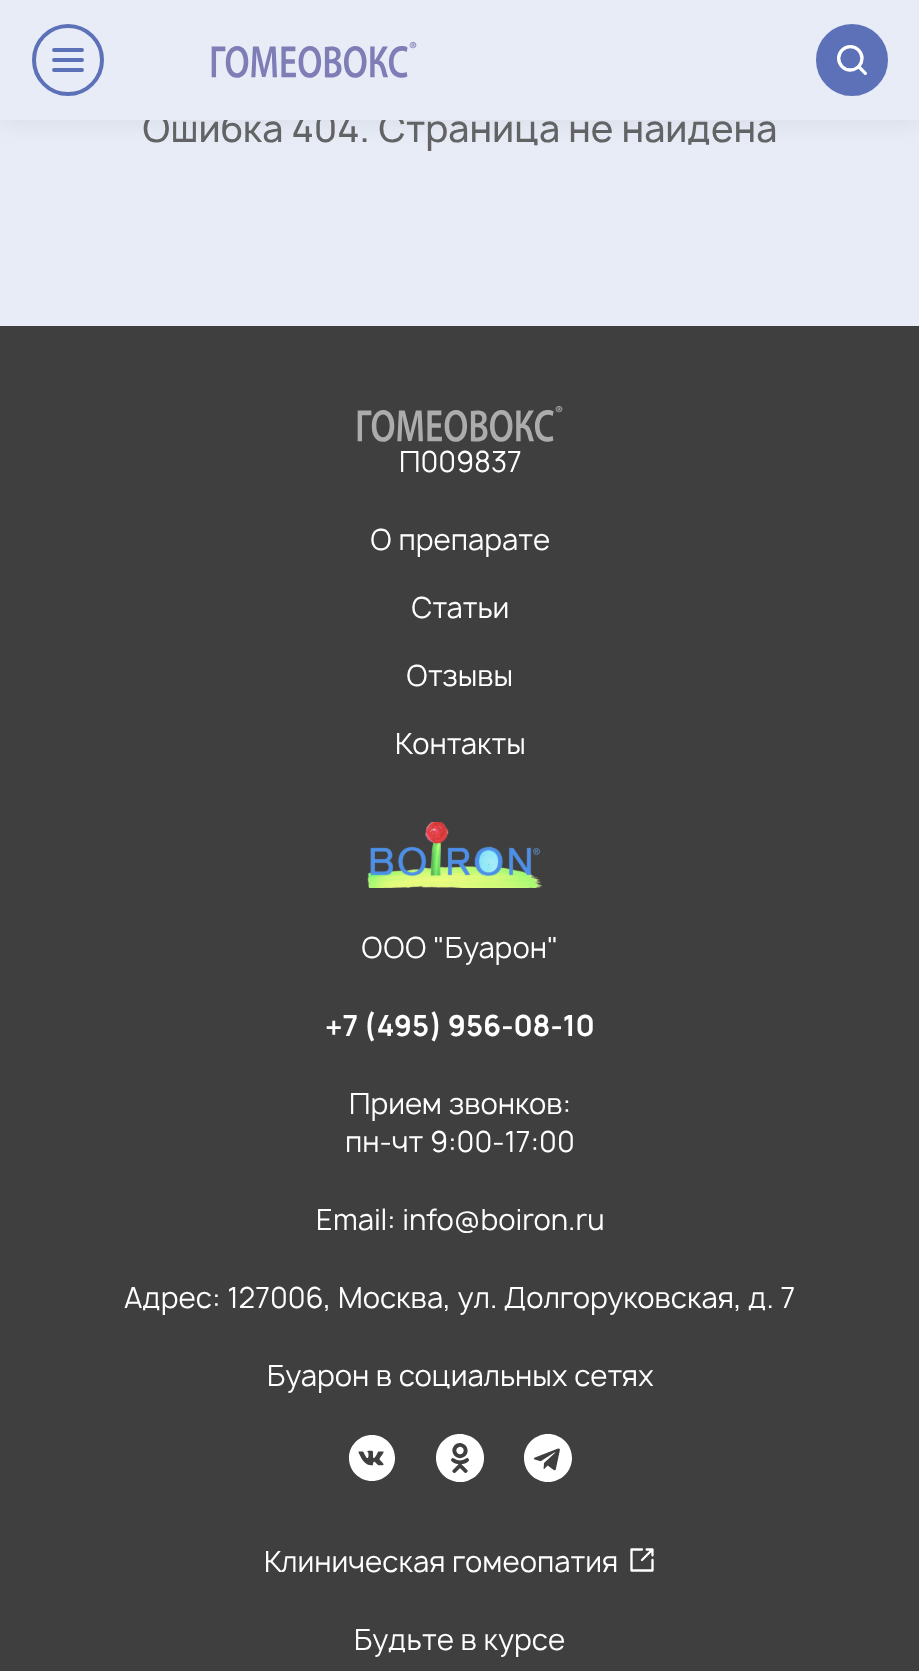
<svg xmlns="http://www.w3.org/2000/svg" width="919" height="1671">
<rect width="100%" height="100%" fill="#e8ecf6"/>
<rect y="4" width="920" height="120" fill="#0000000f" filter="blur(12px)"/>
<text x="142" y="142" style="font-family:Manrope;font-size:36px;font-weight:500;fill:#626365">Ошибка 404. Страница не найдена</text>
<rect width="919" height="120" fill="#e8ecf6"/>
<circle cx="68" cy="60" r="34" fill="none" stroke="#5d71b8" stroke-width="4"/>
<image x="52" y="48" width="32" height="24" href="media/1.png"/>
<image x="211" y="42" width="206" height="36" href="media/2.png"/>
<circle cx="852" cy="60" r="34" fill="#5d71b8" stroke="#5d71b8" stroke-width="4"/>
<image x="837" y="45" width="30" height="30" href="media/3.png"/>
<rect y="326" width="919" height="1345" fill="#3f3f3f"/>
<image x="357" y="406" width="206" height="36" href="media/4.png"/>
<text x="399" y="472" style="font-family:Manrope;font-size:28px;fill:#fff">П009837</text>
<text x="370" y="550" style="font-family:Manrope;font-size:28px;fill:#fff">О препарате</text>
<text x="411" y="618" style="font-family:Manrope;font-size:28px;fill:#fff">Статьи</text>
<text x="406" y="686" style="font-family:Manrope;font-size:28px;fill:#fff">Отзывы</text>
<text x="395" y="754" style="font-family:Manrope;font-size:28px;fill:#fff">Контакты</text>
<image x="367" y="822" width="175" height="66" href="media/5.png"/>
<text x="361" y="958" style="font-family:Manrope;font-size:28px;fill:#fff">ООО "Буарон"</text>
<text x="325" y="1036" style="font-family:Manrope;font-size:28px;font-weight:bold;fill:#fff">+7 (495) 956-08-10</text>
<text x="349" y="1114" style="font-family:Manrope;font-size:28px;fill:#fff">Прием звонков:</text>
<text x="345" y="1152" style="font-family:Manrope;font-size:28px;fill:#fff">пн-чт 9:00-17:00</text>
<text x="316" y="1230" style="font-family:Manrope;font-size:28px;fill:#fff">Email: info@boiron.ru</text>
<text x="124" y="1308" style="font-family:Manrope;font-size:28px;fill:#fff">Адрес: 127006, Москва, ул. Долгоруковская, д. 7</text>
<text x="267" y="1386" style="font-family:Manrope;font-size:28px;fill:#fff">Буарон в социальных сетях</text>
<image x="348" y="1435" width="47" height="46" href="media/6.png"/>
<image x="436" y="1434" width="48" height="48" href="media/7.png"/>
<image x="524" y="1434" width="48" height="48" href="media/8.png"/>
<text x="264" y="1572" style="font-family:Manrope;font-size:28px;fill:#fff">Клиническая гомеопатия</text>
<image x="630" y="1548" width="24" height="24" href="media/9.png"/>
<text x="354" y="1650" style="font-family:Manrope;font-size:28px;fill:#fff">Будьте в курсе</text>
</svg>
